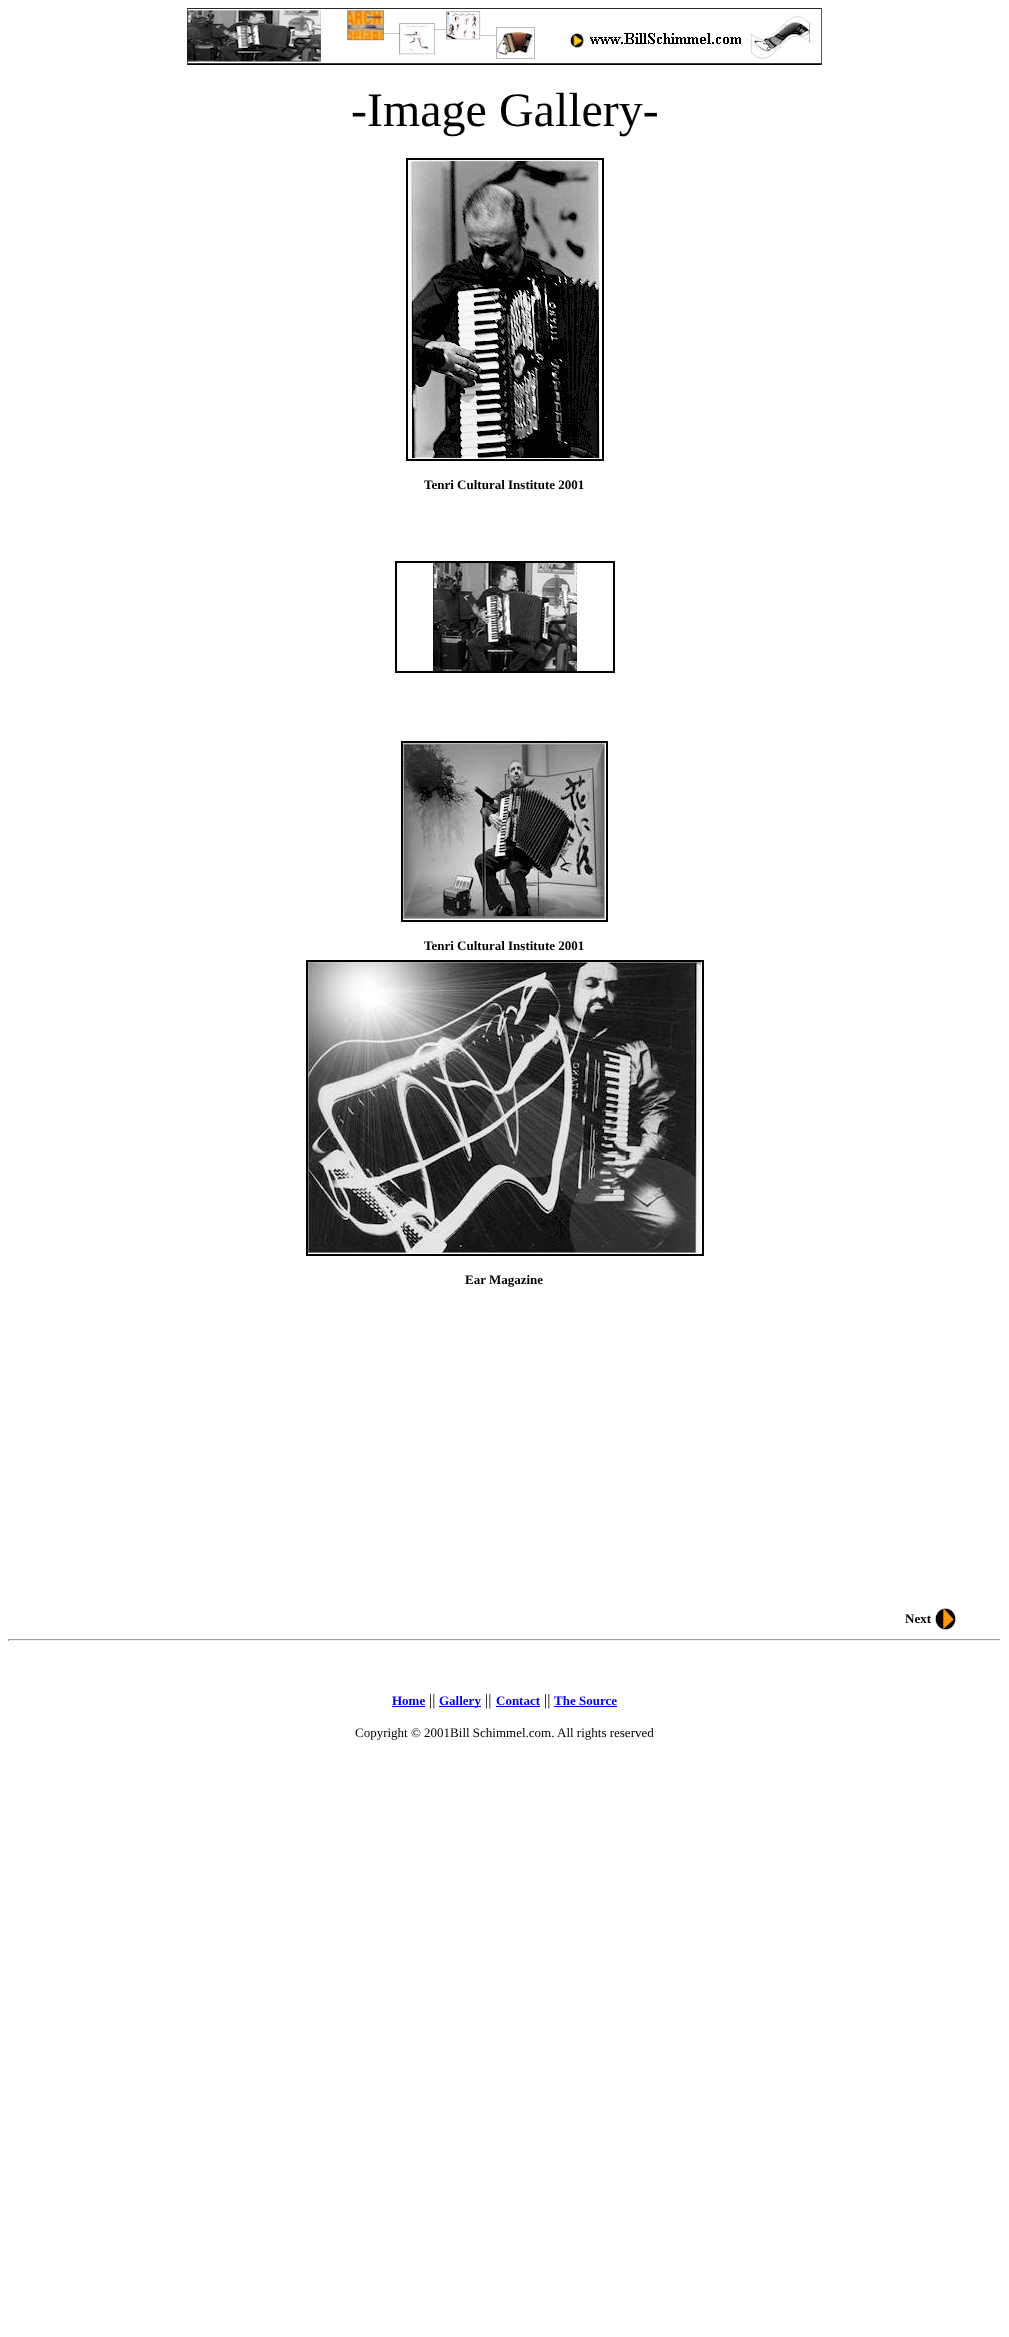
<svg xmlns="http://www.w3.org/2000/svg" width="1009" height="2337">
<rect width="100%" height="100%" fill="#fff"/>
<image x="187" y="8" width="635" height="57" href="media/1.png"/>
<text x="351" y="126" style="font-family:Liberation Serif;font-size:48px;fill:#000">-Image Gallery-</text>
<rect x="407" y="159" width="196" height="301" fill="none" stroke="#000" stroke-width="2"/>
<image x="408" y="160" width="192" height="299" href="media/2.png"/>
<text x="424" y="489" style="font-family:Liberation Serif;font-size:13px;font-weight:bold;fill:#000">Tenri Cultural Institute 2001</text>
<rect x="396" y="562" width="218" height="110" fill="none" stroke="#000" stroke-width="2"/>
<image x="433" y="563" width="144" height="108" href="media/3.png"/>
<rect x="402" y="742" width="205" height="179" fill="none" stroke="#000" stroke-width="2"/>
<image x="403" y="743" width="202" height="176" href="media/4.png"/>
<text x="424" y="950" style="font-family:Liberation Serif;font-size:13px;font-weight:bold;fill:#000">Tenri Cultural Institute 2001</text>
<rect x="307" y="961" width="396" height="294" fill="none" stroke="#000" stroke-width="2"/>
<image x="308" y="962" width="394" height="292" href="media/5.png"/>
<text x="465" y="1284" style="font-family:Liberation Serif;font-size:13px;font-weight:bold;fill:#000">Ear Magazine</text>
<text x="905" y="1623" style="font-family:Liberation Serif;font-size:13px;font-weight:bold;fill:#000">Next</text>
<image x="935" y="1608" width="21" height="22" href="media/6.png"/>
<rect x="8" y="1639" width="993" height="1" fill="#9f9f9f"/>
<rect x="1000" y="1639" width="1" height="2" fill="#eee"/>
<rect x="8" y="1640" width="993" height="1" fill="#eee"/>
<rect x="8" y="1639" width="1" height="2" fill="#9f9f9f"/>
<text x="392" y="1705" style="font-family:Liberation Serif;font-size:13px;font-weight:bold;fill:#00e">Home</text>
<rect x="392" y="1706" width="33" height="1" fill="#00e"/>
<text x="429" y="1705" style="font-family:Liberation Serif;font-size:16px;fill:#000">||</text>
<rect x="439" y="1706" width="42" height="1" fill="#00e"/>
<text x="439" y="1705" style="font-family:Liberation Serif;font-size:13px;font-weight:bold;fill:#00e">Gallery</text>
<text x="485" y="1705" style="font-family:Liberation Serif;font-size:16px;fill:#000">||</text>
<text x="496" y="1705" style="font-family:Liberation Serif;font-size:13px;font-weight:bold;fill:#00e">Contact</text>
<rect x="496" y="1706" width="44" height="1" fill="#00e"/>
<text x="544" y="1705" style="font-family:Liberation Serif;font-size:16px;fill:#000">||</text>
<text x="554" y="1705" style="font-family:Liberation Serif;font-size:13px;font-weight:bold;fill:#00e">The Source</text>
<rect x="554" y="1706" width="63" height="1" fill="#00e"/>
<text x="355" y="1737" style="font-family:Liberation Serif;font-size:13px;fill:#000">Copyright © 2001Bill Schimmel.com. All rights reserved</text>
</svg>
